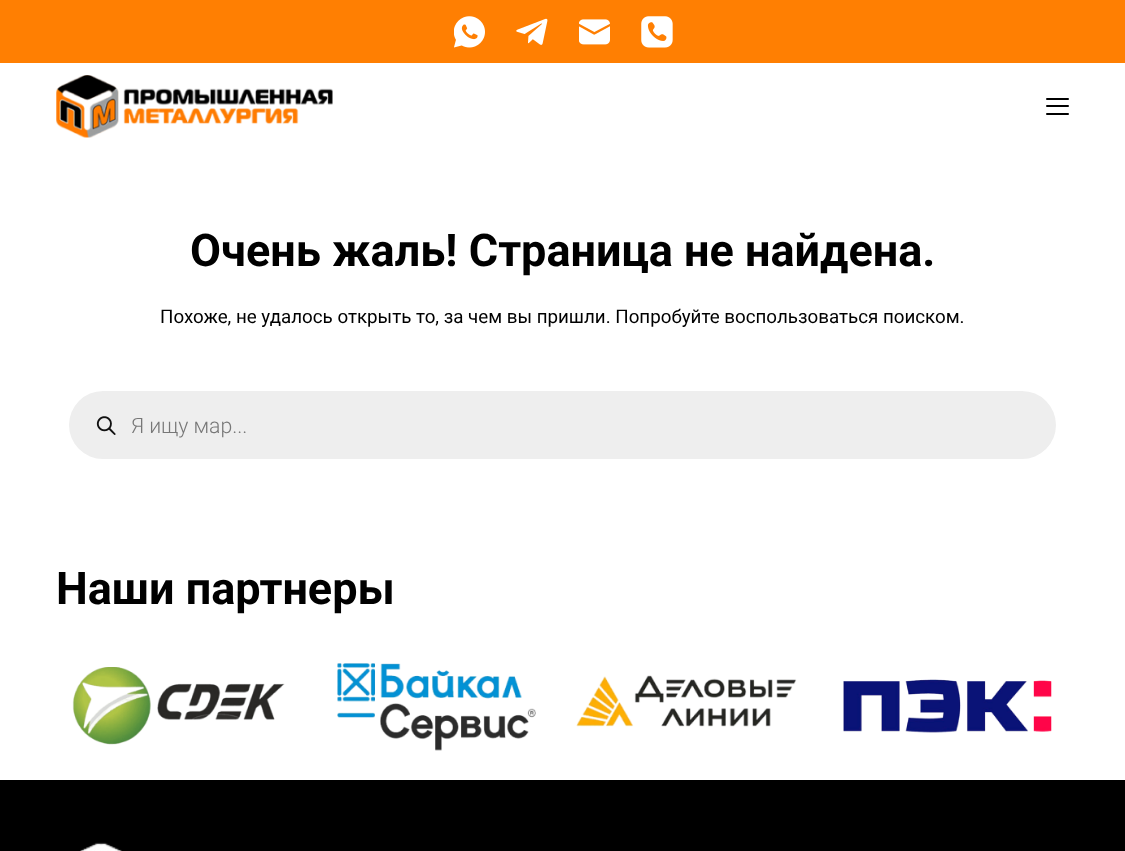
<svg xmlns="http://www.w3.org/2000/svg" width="1125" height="851">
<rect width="100%" height="100%" fill="#fff"/>
<rect width="1125" height="63" fill="#ff7f02"/>
<image x="454" y="16" width="31" height="32" href="media/1.png"/>
<image x="516" y="18" width="32" height="27" href="media/2.png"/>
<image x="579" y="19" width="31" height="26" href="media/3.png"/>
<image x="641" y="16" width="32" height="32" href="media/4.png"/>
<image x="56" y="75" width="277" height="63" href="media/5.png"/>
<rect x="1046" y="98" width="23" height="2" rx="1" fill="#000"/>
<rect x="1046" y="105" width="23" height="2" rx="1" fill="#000"/>
<rect x="1046" y="113" width="23" height="2" rx="1" fill="#000"/>
<text x="190" y="266" style="font-family:Roboto;font-size:45px;font-weight:bold;fill:#000">Очень жаль! Страница не найдена.</text>
<text x="160" y="323" style="font-family:Roboto;font-size:18.75px;fill:#000">Похоже, не удалось открыть то, за чем вы пришли. Попробуйте воспользоваться поиском.</text>
<rect x="69" y="391" width="987" height="68" rx="34" fill="#eee"/>
<image x="96" y="416" width="20" height="19" href="media/6.png"/>
<text x="131" y="433" style="font-family:Roboto;font-size:21.25px;font-weight:300;fill:#777">Я ищу мар...</text>
<text x="56" y="604" style="font-family:Roboto;font-size:45px;font-weight:bold;fill:#000">Наши партнеры</text>
<image x="72" y="667" width="213" height="78" href="media/7.png"/>
<image x="337" y="663" width="199" height="88" href="media/8.png"/>
<image x="576" y="675" width="221" height="52" href="media/9.png"/>
<image x="843" y="679" width="209" height="54" href="media/10.png"/>
<rect y="780" width="1125" height="71" fill="#000"/>
<image x="80" y="842" width="42" height="9" href="media/11.png"/>
</svg>
